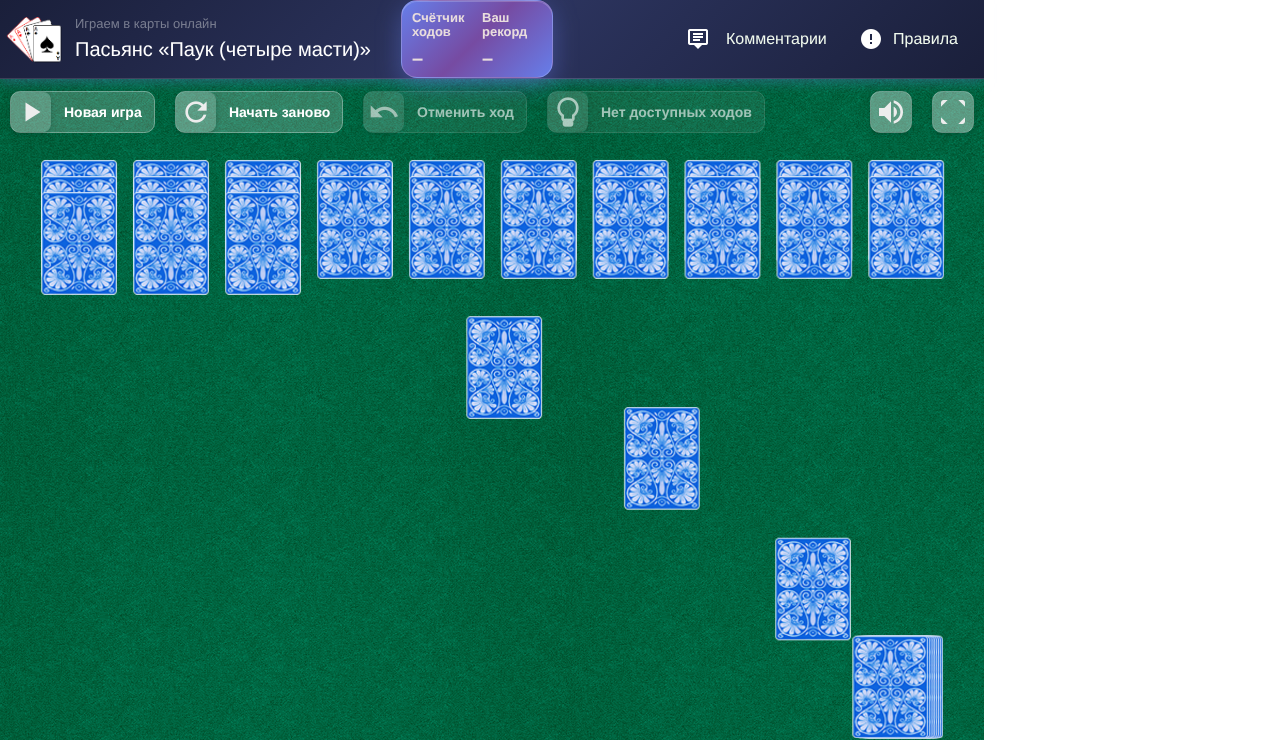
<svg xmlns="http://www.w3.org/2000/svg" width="1285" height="740">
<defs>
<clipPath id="clip1"><path d="M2 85h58v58h-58zm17 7h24c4.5 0 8 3.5 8 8v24c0 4.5-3.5 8-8 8h-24c-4.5 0-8-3.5-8-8v-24c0-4.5 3.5-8 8-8z" clip-rule="evenodd"/></clipPath>
<clipPath id="clip2"><path d="M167 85h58v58h-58zm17 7h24c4.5 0 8 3.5 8 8v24c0 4.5-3.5 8-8 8h-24c-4.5 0-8-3.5-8-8v-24c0-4.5 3.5-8 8-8z" clip-rule="evenodd"/></clipPath>
<clipPath id="clip3"><path d="M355 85h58v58h-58zm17 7h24c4.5 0 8 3.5 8 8v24c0 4.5-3.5 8-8 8h-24c-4.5 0-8-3.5-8-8v-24c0-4.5 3.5-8 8-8z" clip-rule="evenodd"/></clipPath>
<clipPath id="clip4"><path d="M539 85h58v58h-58zm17 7h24c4.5 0 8 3.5 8 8v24c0 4.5-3.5 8-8 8h-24c-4.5 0-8-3.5-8-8v-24c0-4.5 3.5-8 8-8z" clip-rule="evenodd"/></clipPath>
<clipPath id="clip5"><path d="M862 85h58v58h-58zm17 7h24c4.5 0 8 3.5 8 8v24c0 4.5-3.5 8-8 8h-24c-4.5 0-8-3.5-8-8v-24c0-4.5 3.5-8 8-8z" clip-rule="evenodd"/></clipPath>
<clipPath id="clip6"><path d="M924 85h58v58h-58zm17 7h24c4.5 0 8 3.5 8 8v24c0 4.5-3.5 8-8 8h-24c-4.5 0-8-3.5-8-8v-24c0-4.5 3.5-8 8-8z" clip-rule="evenodd"/></clipPath>
<linearGradient id="g1" gradientUnits="userSpaceOnUse" x1="226" y1="-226" x2="758" y2="305"><stop offset="0" stop-color="#1a1f3a"/><stop offset="0.5" stop-color="#2d3560"/><stop offset="1" stop-color="#1a1f3a"/></linearGradient>
<linearGradient id="g2" gradientUnits="userSpaceOnUse" x1="226" y1="-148" x2="758" y2="383"><stop offset="0" stop-color="#1a1f3a"/><stop offset="0.5" stop-color="#2d3560"/><stop offset="1" stop-color="#1a1f3a"/></linearGradient>
<clipPath id="clip7"><rect x="401" width="152" height="78" rx="16"/></clipPath>
<linearGradient id="g3" gradientUnits="userSpaceOnUse" x1="421" y1="-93" x2="534" y2="19"><stop offset="0" stop-color="#667eea"/><stop offset="0.5" stop-color="#764ba2"/><stop offset="1" stop-color="#667eea"/></linearGradient>
<linearGradient id="g4" gradientUnits="userSpaceOnUse" x1="271" y1="-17" x2="384" y2="95"><stop offset="0" stop-color="#667eea"/><stop offset="0.5" stop-color="#764ba2"/><stop offset="1" stop-color="#667eea"/></linearGradient>
<linearGradient id="g5" gradientUnits="userSpaceOnUse" x1="421" y1="-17" x2="534" y2="95"><stop offset="0" stop-color="#667eea"/><stop offset="0.5" stop-color="#764ba2"/><stop offset="1" stop-color="#667eea"/></linearGradient>
<linearGradient id="g6" gradientUnits="userSpaceOnUse" x1="571" y1="-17" x2="684" y2="95"><stop offset="0" stop-color="#667eea"/><stop offset="0.5" stop-color="#764ba2"/><stop offset="1" stop-color="#667eea"/></linearGradient>
<linearGradient id="g7" gradientUnits="userSpaceOnUse" x1="421" y1="59" x2="534" y2="172"><stop offset="0" stop-color="#667eea"/><stop offset="0.5" stop-color="#764ba2"/><stop offset="1" stop-color="#667eea"/></linearGradient>
</defs>
<rect width="100%" height="100%" fill="#fff"/>
<image x="0" y="79" width="984" height="661" href="media/4.png"/>
<rect x="10" y="91" width="145" height="42" rx="10" fill="#ffffff33"/>
<rect x="10.5" y="91.5" width="144" height="41" rx="9.5" fill="none" stroke="#ffffff4d"/>
<g clip-path="url(#clip1)">
<rect x="11" y="94" width="40" height="40" rx="8" fill="#00000033" filter="blur(2.5px)"/>
</g>
<rect x="11" y="92" width="40" height="40" rx="8" fill="#ffffff33"/>
<rect x="175" y="91" width="168" height="42" rx="10" fill="#ffffff33"/>
<rect x="175.5" y="91.5" width="167" height="41" rx="9.5" fill="none" stroke="#ffffff4d"/>
<g clip-path="url(#clip2)">
<rect x="176" y="94" width="40" height="40" rx="8" fill="#00000033" filter="blur(2.5px)"/>
</g>
<rect x="176" y="92" width="40" height="40" rx="8" fill="#ffffff33"/>
<image x="185" y="101" width="22" height="22" href="media/5.png"/>
<rect x="363" y="91" width="164" height="42" rx="10" fill="#ffffff12"/>
<rect x="363.5" y="91.5" width="163" height="41" rx="9.5" fill="none" stroke="#ffffff1c"/>
<g clip-path="url(#clip3)">
<rect x="364" y="94" width="40" height="40" rx="8" fill="#0000001f" filter="blur(2.5px)"/>
</g>
<rect x="364" y="92" width="40" height="40" rx="8" fill="#ffffff1f"/>
<rect x="547" y="91" width="218" height="42" rx="10" fill="#ffffff12"/>
<rect x="547.5" y="91.5" width="217" height="41" rx="9.5" fill="none" stroke="#ffffff1c"/>
<g clip-path="url(#clip4)">
<rect x="548" y="94" width="40" height="40" rx="8" fill="#0000001f" filter="blur(2.5px)"/>
</g>
<rect x="548" y="92" width="40" height="40" rx="8" fill="#ffffff1f"/>
<image x="557" y="97" width="22" height="30" href="media/7.png"/>
<rect x="870" y="91" width="42" height="42" rx="10" fill="#ffffff33"/>
<rect x="870.5" y="91.5" width="41" height="41" rx="9.5" fill="none" stroke="#ffffff4d"/>
<g clip-path="url(#clip5)">
<rect x="871" y="94" width="40" height="40" rx="8" fill="#00000033" filter="blur(2.5px)"/>
</g>
<rect x="871" y="92" width="40" height="40" rx="8" fill="#ffffff33"/>
<image x="879" y="100" width="24" height="24" href="media/8.png"/>
<rect x="932" y="91" width="42" height="42" rx="10" fill="#ffffff33"/>
<rect x="932.5" y="91.5" width="41" height="41" rx="9.5" fill="none" stroke="#ffffff4d"/>
<g clip-path="url(#clip6)">
<rect x="933" y="94" width="40" height="40" rx="8" fill="#00000033" filter="blur(2.5px)"/>
</g>
<rect x="933" y="92" width="40" height="40" rx="8" fill="#ffffff33"/>
<image x="941" y="100" width="24" height="24" href="media/9.png"/>
<rect y="4" width="984" height="79" fill="#667eea4d" filter="blur(6px)"/>
<rect width="984" height="78" fill="url(#g1)"/>
<rect y="78" width="984" height="1" fill="url(#g2)"/>
<rect y="78" width="984" height="1" fill="#ffffff26"/>
<image x="6" y="17" width="56" height="46" href="media/1.png"/>
<text x="75" y="28" style="font-family:Liberation Sans;font-size:13px;fill:#797d90">Играем в карты онлайн</text>
<text x="75" y="56" style="font-family:Liberation Sans;font-size:20px;fill:#fff">Пасьянс «Паук (четыре масти)»</text>
<image x="370" y="105" width="28" height="13" href="media/6.png"/>
<rect x="401" y="8" width="152" height="78" rx="16" fill="#667eea66" filter="blur(12px)"/>
<g clip-path="url(#clip7)">
<rect x="411" width="132" height="1" fill="url(#g3)"/>
<rect x="401" y="10" width="1" height="58" fill="url(#g4)"/>
<rect x="402" y="1" width="150" height="76" fill="url(#g5)"/>
<rect x="552" y="10" width="1" height="58" fill="url(#g6)"/>
<rect x="411" y="77" width="132" height="1" fill="url(#g7)"/>
</g>
<path d="M417 2h120c8 0 15 7 15 15c0-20-22-16-35-16h-80c-13 0-35-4-35 16c0-8 7-15 15-15z" fill="#ffffff33"/>
<rect x="401.5" y="0.5" width="151" height="77" rx="15.5" fill="none" stroke="#ffffff33"/>
<text x="412" y="22" style="font-family:Liberation Sans;font-size:13px;font-weight:bold;fill:#e9dddd">Счётчик</text>
<text x="412" y="36" style="font-family:Liberation Sans;font-size:13px;font-weight:bold;fill:#e9dddd">ходов</text>
<text x="412" y="65" style="font-family:Liberation Sans;font-size:20px;font-weight:bold;fill:#e9dddd">–</text>
<text x="482" y="22" style="font-family:Liberation Sans;font-size:13px;font-weight:bold;fill:#e9dddd">Ваш</text>
<text x="482" y="36" style="font-family:Liberation Sans;font-size:13px;font-weight:bold;fill:#e9dddd">рекорд</text>
<text x="482" y="65" style="font-family:Liberation Sans;font-size:20px;font-weight:bold;fill:#e9dddd">–</text>
<image x="688" y="29" width="20" height="20" href="media/2.png"/>
<text x="726" y="44" style="font-family:Liberation Sans;font-size:16px;fill:#f1faee">Комментарии</text>
<image x="861" y="29" width="20" height="20" href="media/3.png"/>
<text x="893" y="44" style="font-family:Liberation Sans;font-size:16px;fill:#f1faee">Правила</text>
<rect x="984" width="10" height="90" fill="#fff"/>
<path d="M25.5 102.5v19l15-9.5z" fill="#ededed" fill-rule="evenodd"/>
<text x="64" y="117" style="font-family:Liberation Sans;font-size:14px;font-weight:bold;fill:#fff">Новая игра</text>
<text x="229" y="117" style="font-family:Liberation Sans;font-size:14px;font-weight:bold;fill:#fff">Начать заново</text>
<text x="417" y="117" style="font-family:Liberation Sans;font-size:14px;font-weight:bold;fill:#a0c4b7">Отменить ход</text>
<text x="601" y="117" style="font-family:Liberation Sans;font-size:14px;font-weight:bold;fill:#a0c4b7">Нет доступных ходов</text>
<image x="40" y="159" width="78" height="104" href="media/10.png"/>
<image x="41" y="160" width="76" height="103" href="media/11.png"/>
<image x="41" y="176" width="76" height="103" href="media/12.png"/>
<image x="41" y="192" width="76" height="103" href="media/13.png"/>
<image x="132" y="159" width="78" height="104" href="media/14.png"/>
<image x="133" y="160" width="76" height="103" href="media/15.png"/>
<image x="133" y="176" width="76" height="103" href="media/16.png"/>
<image x="133" y="192" width="76" height="103" href="media/17.png"/>
<image x="224" y="159" width="78" height="104" href="media/18.png"/>
<image x="225" y="160" width="76" height="103" href="media/19.png"/>
<image x="225" y="176" width="76" height="103" href="media/20.png"/>
<image x="225" y="192" width="76" height="103" href="media/21.png"/>
<image x="316" y="159" width="77" height="104" href="media/22.png"/>
<image x="317" y="160" width="76" height="103" href="media/23.png"/>
<image x="317" y="176" width="76" height="103" href="media/24.png"/>
<image x="466" y="316" width="77" height="103" href="media/25.png"/>
<image x="408" y="159" width="77" height="104" href="media/26.png"/>
<image x="409" y="160" width="76" height="103" href="media/27.png"/>
<image x="409" y="176" width="76" height="103" href="media/28.png"/>
<image x="623" y="407" width="77" height="103" href="media/29.png"/>
<image x="500" y="159" width="77" height="104" href="media/30.png"/>
<image x="500" y="160" width="77" height="103" href="media/31.png"/>
<image x="500" y="176" width="77" height="103" href="media/32.png"/>
<image x="775" y="537" width="76" height="104" href="media/33.png"/>
<image x="592" y="159" width="77" height="104" href="media/34.png"/>
<image x="592" y="160" width="77" height="103" href="media/35.png"/>
<image x="592" y="176" width="77" height="103" href="media/36.png"/>
<image x="684" y="159" width="77" height="104" href="media/37.png"/>
<image x="684" y="160" width="77" height="103" href="media/38.png"/>
<image x="684" y="176" width="77" height="103" href="media/39.png"/>
<image x="776" y="159" width="77" height="104" href="media/40.png"/>
<image x="776" y="160" width="77" height="103" href="media/41.png"/>
<image x="776" y="176" width="77" height="103" href="media/42.png"/>
<image x="867" y="159" width="78" height="104" href="media/43.png"/>
<image x="868" y="160" width="76" height="103" href="media/44.png"/>
<image x="868" y="176" width="76" height="103" href="media/45.png"/>
<image x="868" y="635" width="75" height="103" href="media/46.png"/>
<image x="866" y="635" width="76" height="104" href="media/47.png"/>
<image x="864" y="635" width="75" height="104" href="media/48.png"/>
<image x="862" y="635" width="75" height="104" href="media/49.png"/>
<image x="859" y="635" width="76" height="103" href="media/50.png"/>
<image x="856" y="635" width="77" height="104" href="media/51.png"/>
<image x="854" y="635" width="77" height="103" href="media/52.png"/>
<image x="852" y="635" width="76" height="103" href="media/53.png"/>
</svg>
